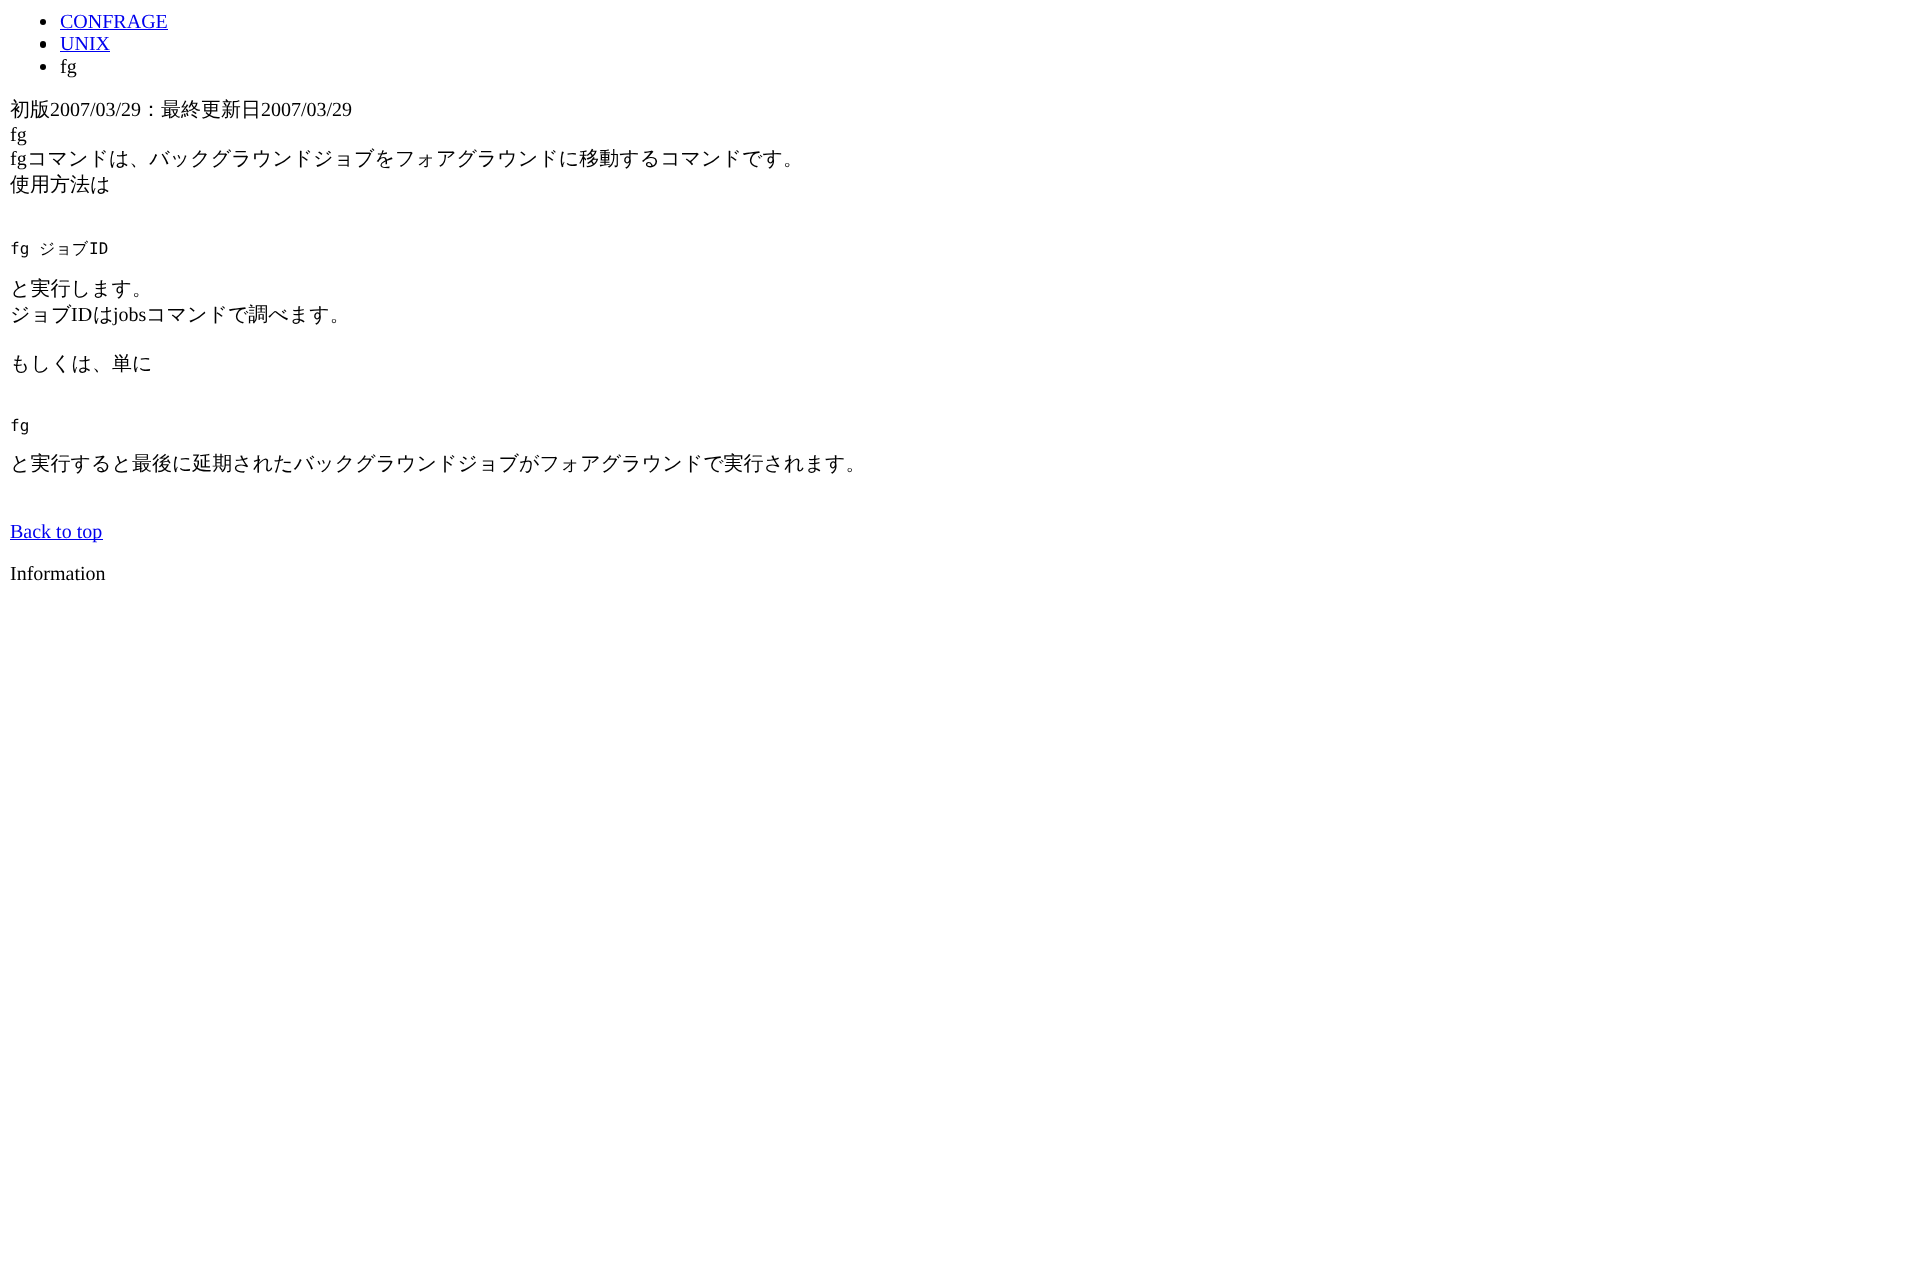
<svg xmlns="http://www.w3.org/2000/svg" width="1927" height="1264">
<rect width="100%" height="100%" fill="#fff"/>
<circle cx="43" cy="22" r="3" fill="#000"/>
<text x="60" y="28" style="font-family:Liberation Serif;font-size:20px;fill:#00e">CONFRAGE</text>
<rect x="60" y="29" width="108" height="1" fill="#00e"/>
<rect x="40" y="41" width="6" height="7" rx="3" fill="#000"/>
<text x="60" y="50" style="font-family:Liberation Serif;font-size:20px;fill:#00e">UNIX</text>
<rect x="60" y="51" width="50" height="1" fill="#00e"/>
<circle cx="43" cy="67" r="3" fill="#000"/>
<text x="60" y="73" style="font-family:Liberation Serif;font-size:20px;fill:#000">fg</text>
<text x="10" y="116" style="font-family:WenQuanYi Zen Hei;font-size:20px;font-weight:500;fill:#000">初版</text>
<text x="50" y="116" style="font-family:Liberation Serif;font-size:20px;fill:#000">2007/03/29</text>
<text x="141" y="116" style="font-family:WenQuanYi Zen Hei;font-size:20px;font-weight:500;fill:#000">：最終更新日</text>
<text x="261" y="116" style="font-family:Liberation Serif;font-size:20px;fill:#000">2007/03/29</text>
<text x="10" y="141" style="font-family:Liberation Serif;font-size:20px;fill:#000">fg</text>
<text x="10" y="165" style="font-family:Liberation Serif;font-size:20px;fill:#000">fg</text>
<text x="27" y="165" style="font-family:WenQuanYi Zen Hei;font-size:20px;font-weight:500;fill:#000">コマンドは、バックグラウンドジョブをフォアグラウンドに移動するコマンドです。</text>
<text x="10" y="191" style="font-family:WenQuanYi Zen Hei;font-size:20px;font-weight:500;fill:#000">使用方法は</text>
<text x="10" y="254" style="font-family:DejaVu Sans Mono;font-size:16px;fill:#000">fg</text>
<text x="39" y="254" style="font-family:WenQuanYi Zen Hei;font-size:16px;font-weight:500;fill:#000">ジョブ</text>
<text x="89" y="254" style="font-family:DejaVu Sans Mono;font-size:16px;fill:#000">ID</text>
<text x="10" y="295" style="font-family:WenQuanYi Zen Hei;font-size:20px;font-weight:500;fill:#000">と実行します。</text>
<text x="10" y="321" style="font-family:WenQuanYi Zen Hei;font-size:20px;font-weight:500;fill:#000">ジョブ</text>
<text x="71" y="321" style="font-family:Liberation Serif;font-size:20px;fill:#000">ID</text>
<text x="93" y="321" style="font-family:WenQuanYi Zen Hei;font-size:20px;font-weight:500;fill:#000">は</text>
<text x="113" y="321" style="font-family:Liberation Serif;font-size:20px;fill:#000">jobs</text>
<text x="146" y="321" style="font-family:WenQuanYi Zen Hei;font-size:20px;font-weight:500;fill:#000">コマンドで調べます。</text>
<text x="10" y="370" style="font-family:WenQuanYi Zen Hei;font-size:20px;font-weight:500;fill:#000">もしくは、単に</text>
<text x="10" y="431" style="font-family:DejaVu Sans Mono;font-size:16px;fill:#000">fg</text>
<text x="10" y="470" style="font-family:WenQuanYi Zen Hei;font-size:20px;font-weight:500;fill:#000">と実行すると最後に延期されたバックグラウンドジョブがフォアグラウンドで実行されます。</text>
<rect x="10" y="539" width="93" height="1" fill="#00e"/>
<text x="10" y="538" style="font-family:Liberation Serif;font-size:20px;fill:#00e">Back to top</text>
<text x="10" y="580" style="font-family:Liberation Serif;font-size:20px;fill:#000">Information</text>
</svg>
